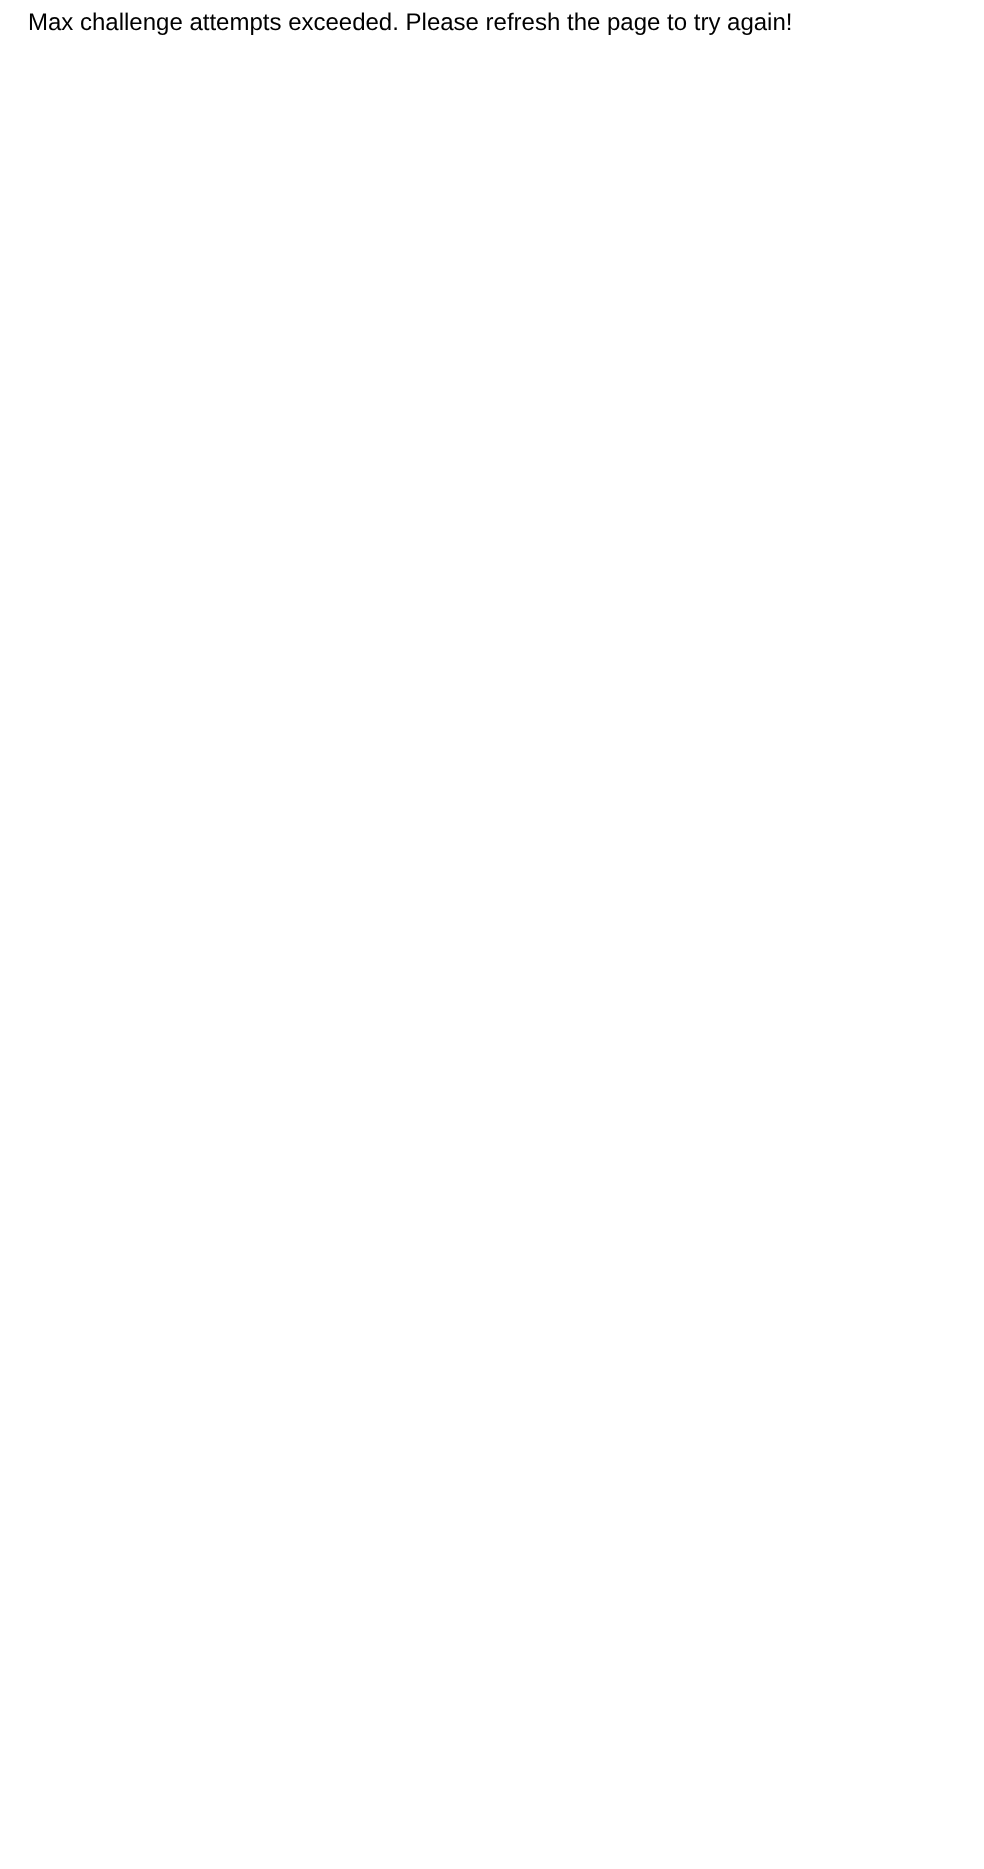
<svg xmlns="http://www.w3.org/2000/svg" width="984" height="1869">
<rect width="100%" height="100%" fill="#fff"/>
<text x="28" y="30" style="font-family:Liberation Sans;font-size:24px;fill:#000">Max challenge attempts exceeded. Please refresh the page to try again!</text>
</svg>
